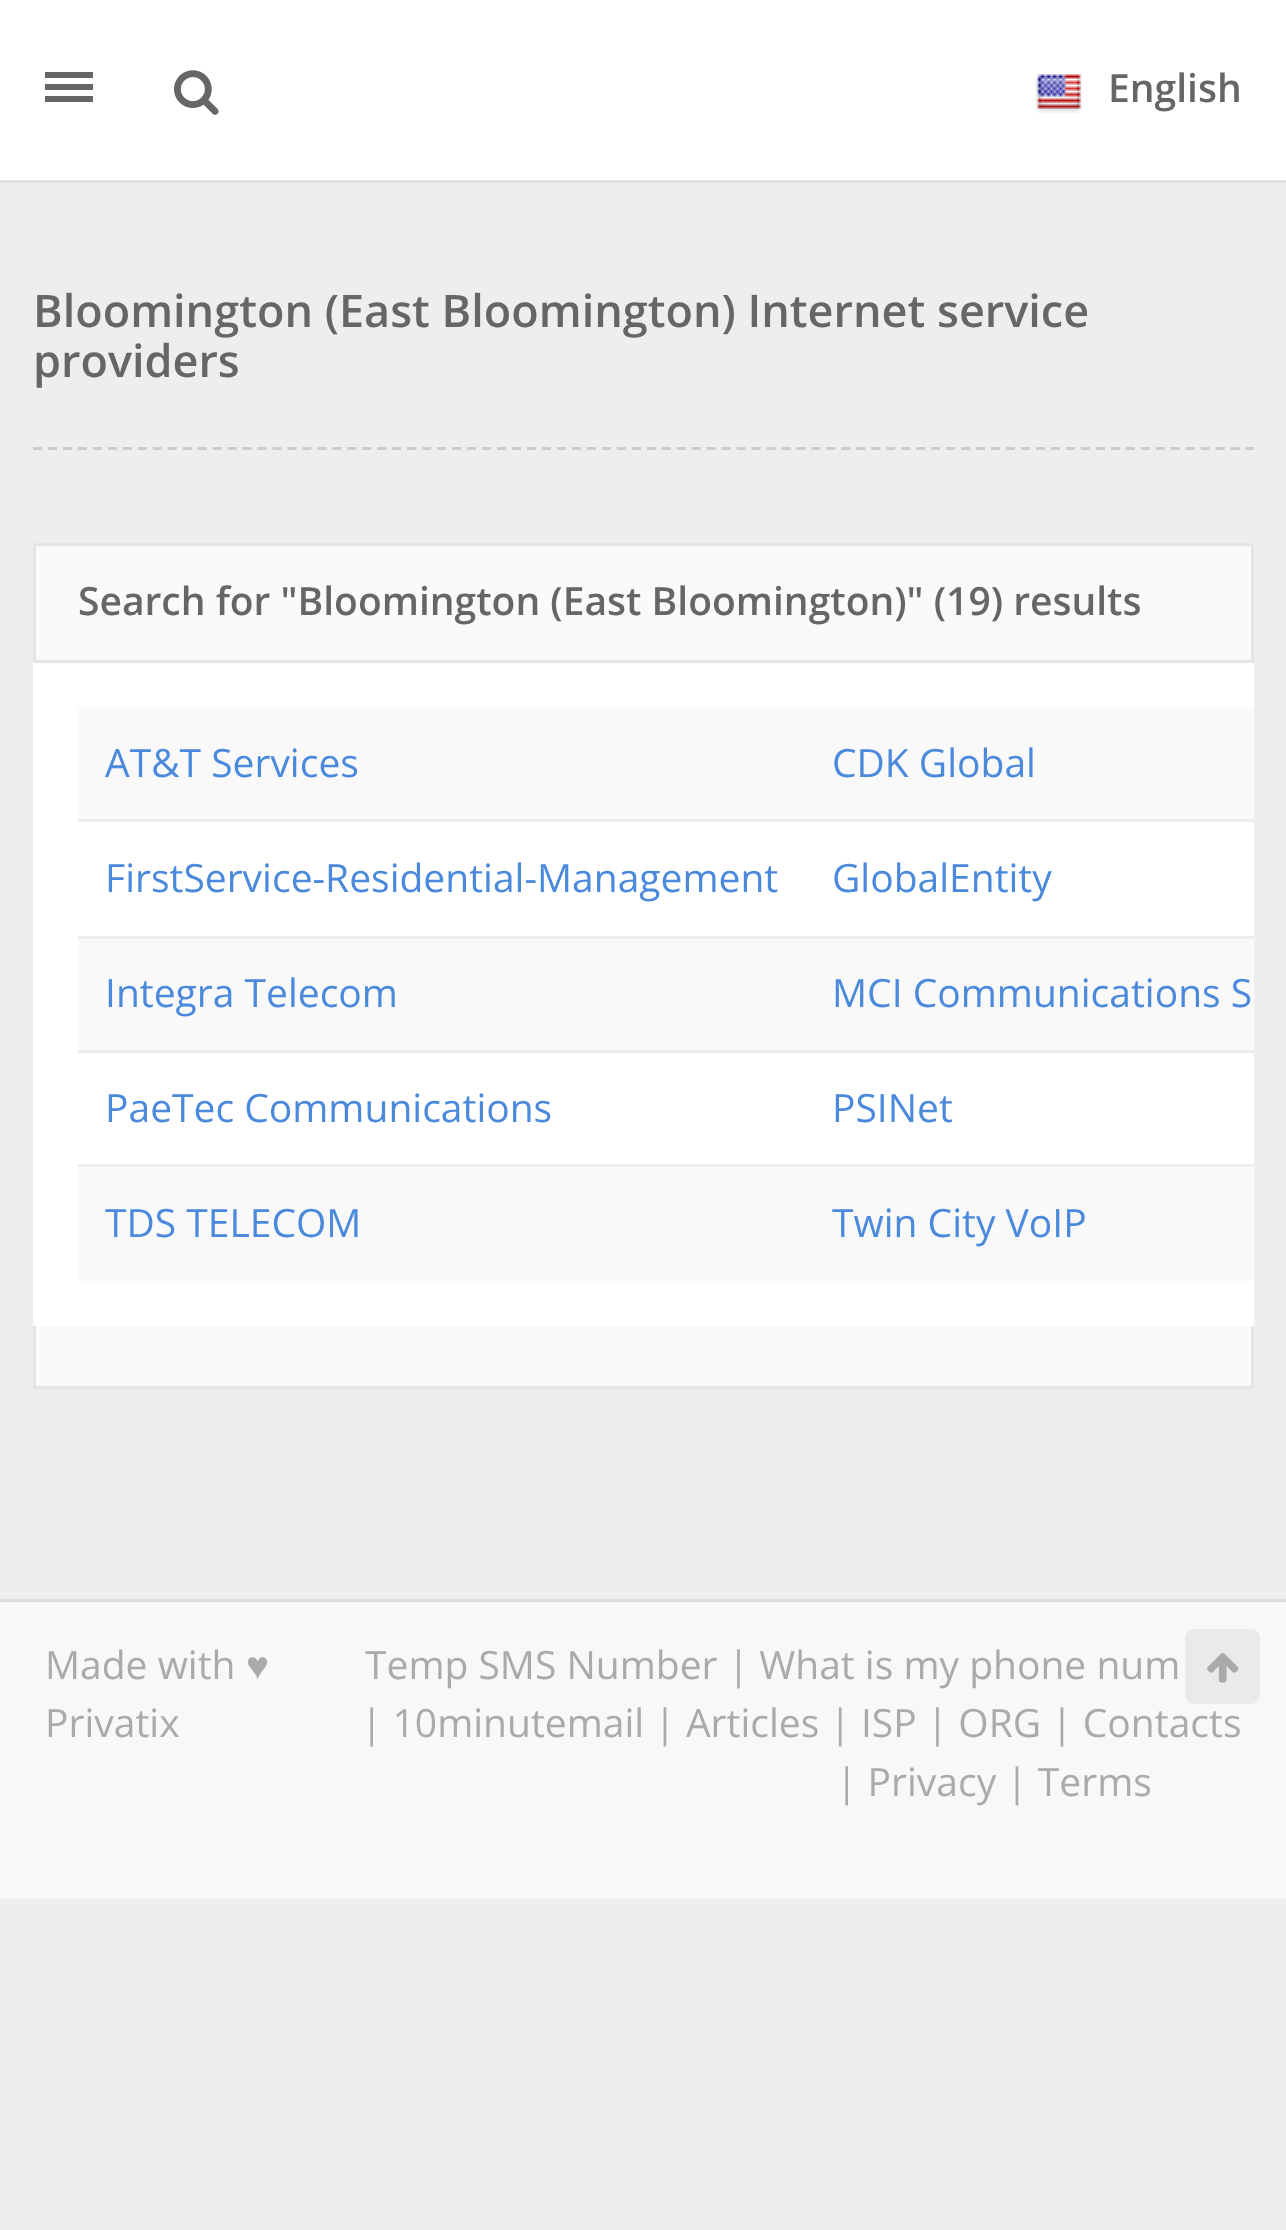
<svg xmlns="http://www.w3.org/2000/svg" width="1286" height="2230">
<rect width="100%" height="100%" fill="#eee"/>
<rect y="180" width="1286" height="3" fill="#e0e0e0"/>
<rect width="1286" height="180" fill="#fff"/>
<path d="M93 78h-48v-6h48zm0 6h-48v6h48zm0 12h-48v6h48z" fill="#666"/>
<image x="174" y="70" width="45" height="45" href="media/1.png"/>
<image x="1035" y="74" width="48" height="40" href="media/2.png"/>
<text x="1108" y="102" style="font-family:Open Sans;font-size:39px;font-weight:600;fill:#666">English</text>
<path d="M33 448.5h1221" fill="none" stroke="#ccc" stroke-width="3" stroke-dasharray="9 5.97"/>
<text x="33" y="327" style="font-family:Open Sans;font-size:45px;font-weight:600;fill:#666">Bloomington (East Bloomington) Internet service</text>
<text x="33" y="377" style="font-family:Open Sans;font-size:45px;font-weight:600;fill:#666">providers</text>
<rect x="33" y="543" width="1221" height="846" rx="6" fill="#fff"/>
<path d="M36 544.5h1215c1 0 1.5 .5 1.5 1.5v115.5h-1218v-115.5c0-1 .5-1.5 1.5-1.5z" fill="#fafafa" stroke="#e5e5e5" stroke-width="3"/>
<text x="78" y="615" style="font-family:Open Sans;font-size:39px;font-weight:600;fill:#666">Search for "Bloomington (East Bloomington)" (19) results</text>
<rect x="78" y="708" width="1176" height="111" fill="#f9f9f9"/>
<text x="105" y="777" style="font-family:Open Sans;font-size:39px;fill:#4a89dc">AT&amp;T Services</text>
<text x="832" y="777" style="font-family:Open Sans;font-size:39px;fill:#4a89dc">CDK Global</text>
<text x="105" y="892" style="font-family:Open Sans;font-size:39px;fill:#4a89dc">FirstService-Residential-Management</text>
<rect x="78" y="819" width="1176" height="3" fill="#eee"/>
<text x="832" y="892" style="font-family:Open Sans;font-size:39px;fill:#4a89dc">GlobalEntity</text>
<rect x="78" y="939" width="1176" height="111" fill="#f9f9f9"/>
<text x="105" y="1007" style="font-family:Open Sans;font-size:39px;fill:#4a89dc">Integra Telecom</text>
<rect x="78" y="936" width="1176" height="3" fill="#eee"/>
<text x="832" y="1007" style="font-family:Open Sans;font-size:39px;fill:#4a89dc">MCI Communications S</text>
<text x="105" y="1122" style="font-family:Open Sans;font-size:39px;fill:#4a89dc">PaeTec Communications</text>
<rect x="78" y="1050" width="1176" height="3" fill="#eee"/>
<text x="832" y="1122" style="font-family:Open Sans;font-size:39px;fill:#4a89dc">PSINet</text>
<rect x="78" y="1167" width="1176" height="114" fill="#f9f9f9"/>
<text x="105" y="1237" style="font-family:Open Sans;font-size:39px;fill:#4a89dc">TDS TELECOM</text>
<rect x="78" y="1164" width="1176" height="3" fill="#eee"/>
<text x="832" y="1237" style="font-family:Open Sans;font-size:39px;fill:#4a89dc">Twin City VoIP</text>
<rect x="36" y="1326" width="1215" height="60" fill="#fafafa"/>
<rect x="1251" y="1326" width="3" height="63" fill="#e5e5e5"/>
<rect x="36" y="1386" width="1218" height="3" fill="#e5e5e5"/>
<rect x="33" y="1326" width="3" height="63" fill="#e5e5e5"/>
<rect y="1602" width="1286" height="297" fill="#f8f8f8"/>
<rect y="1599" width="1286" height="3" fill="#ddd"/>
<text x="45" y="1679" style="font-family:Open Sans;font-size:39px;fill:#aaa">Made with</text>
<text x="246" y="1679" style="font-family:Liberation Sans;font-size:39px;fill:#aaa">♥</text>
<text x="45" y="1737" style="font-family:Open Sans;font-size:39px;fill:#aaa">Privatix</text>
<text x="365" y="1679" style="font-family:Open Sans;font-size:39px;fill:#aaa">Temp SMS Number | What is my phone num</text>
<rect x="1185" y="1629" width="75" height="75" rx="9" fill="#eaeaea"/>
<image x="1207" y="1653" width="32" height="30" href="media/3.png"/>
<text x="361" y="1737" style="font-family:Open Sans;font-size:39px;fill:#aaa">| 10minutemail | Articles | ISP | ORG | Contacts</text>
<text x="836" y="1796" style="font-family:Open Sans;font-size:39px;fill:#aaa">| Privacy | Terms</text>
</svg>
